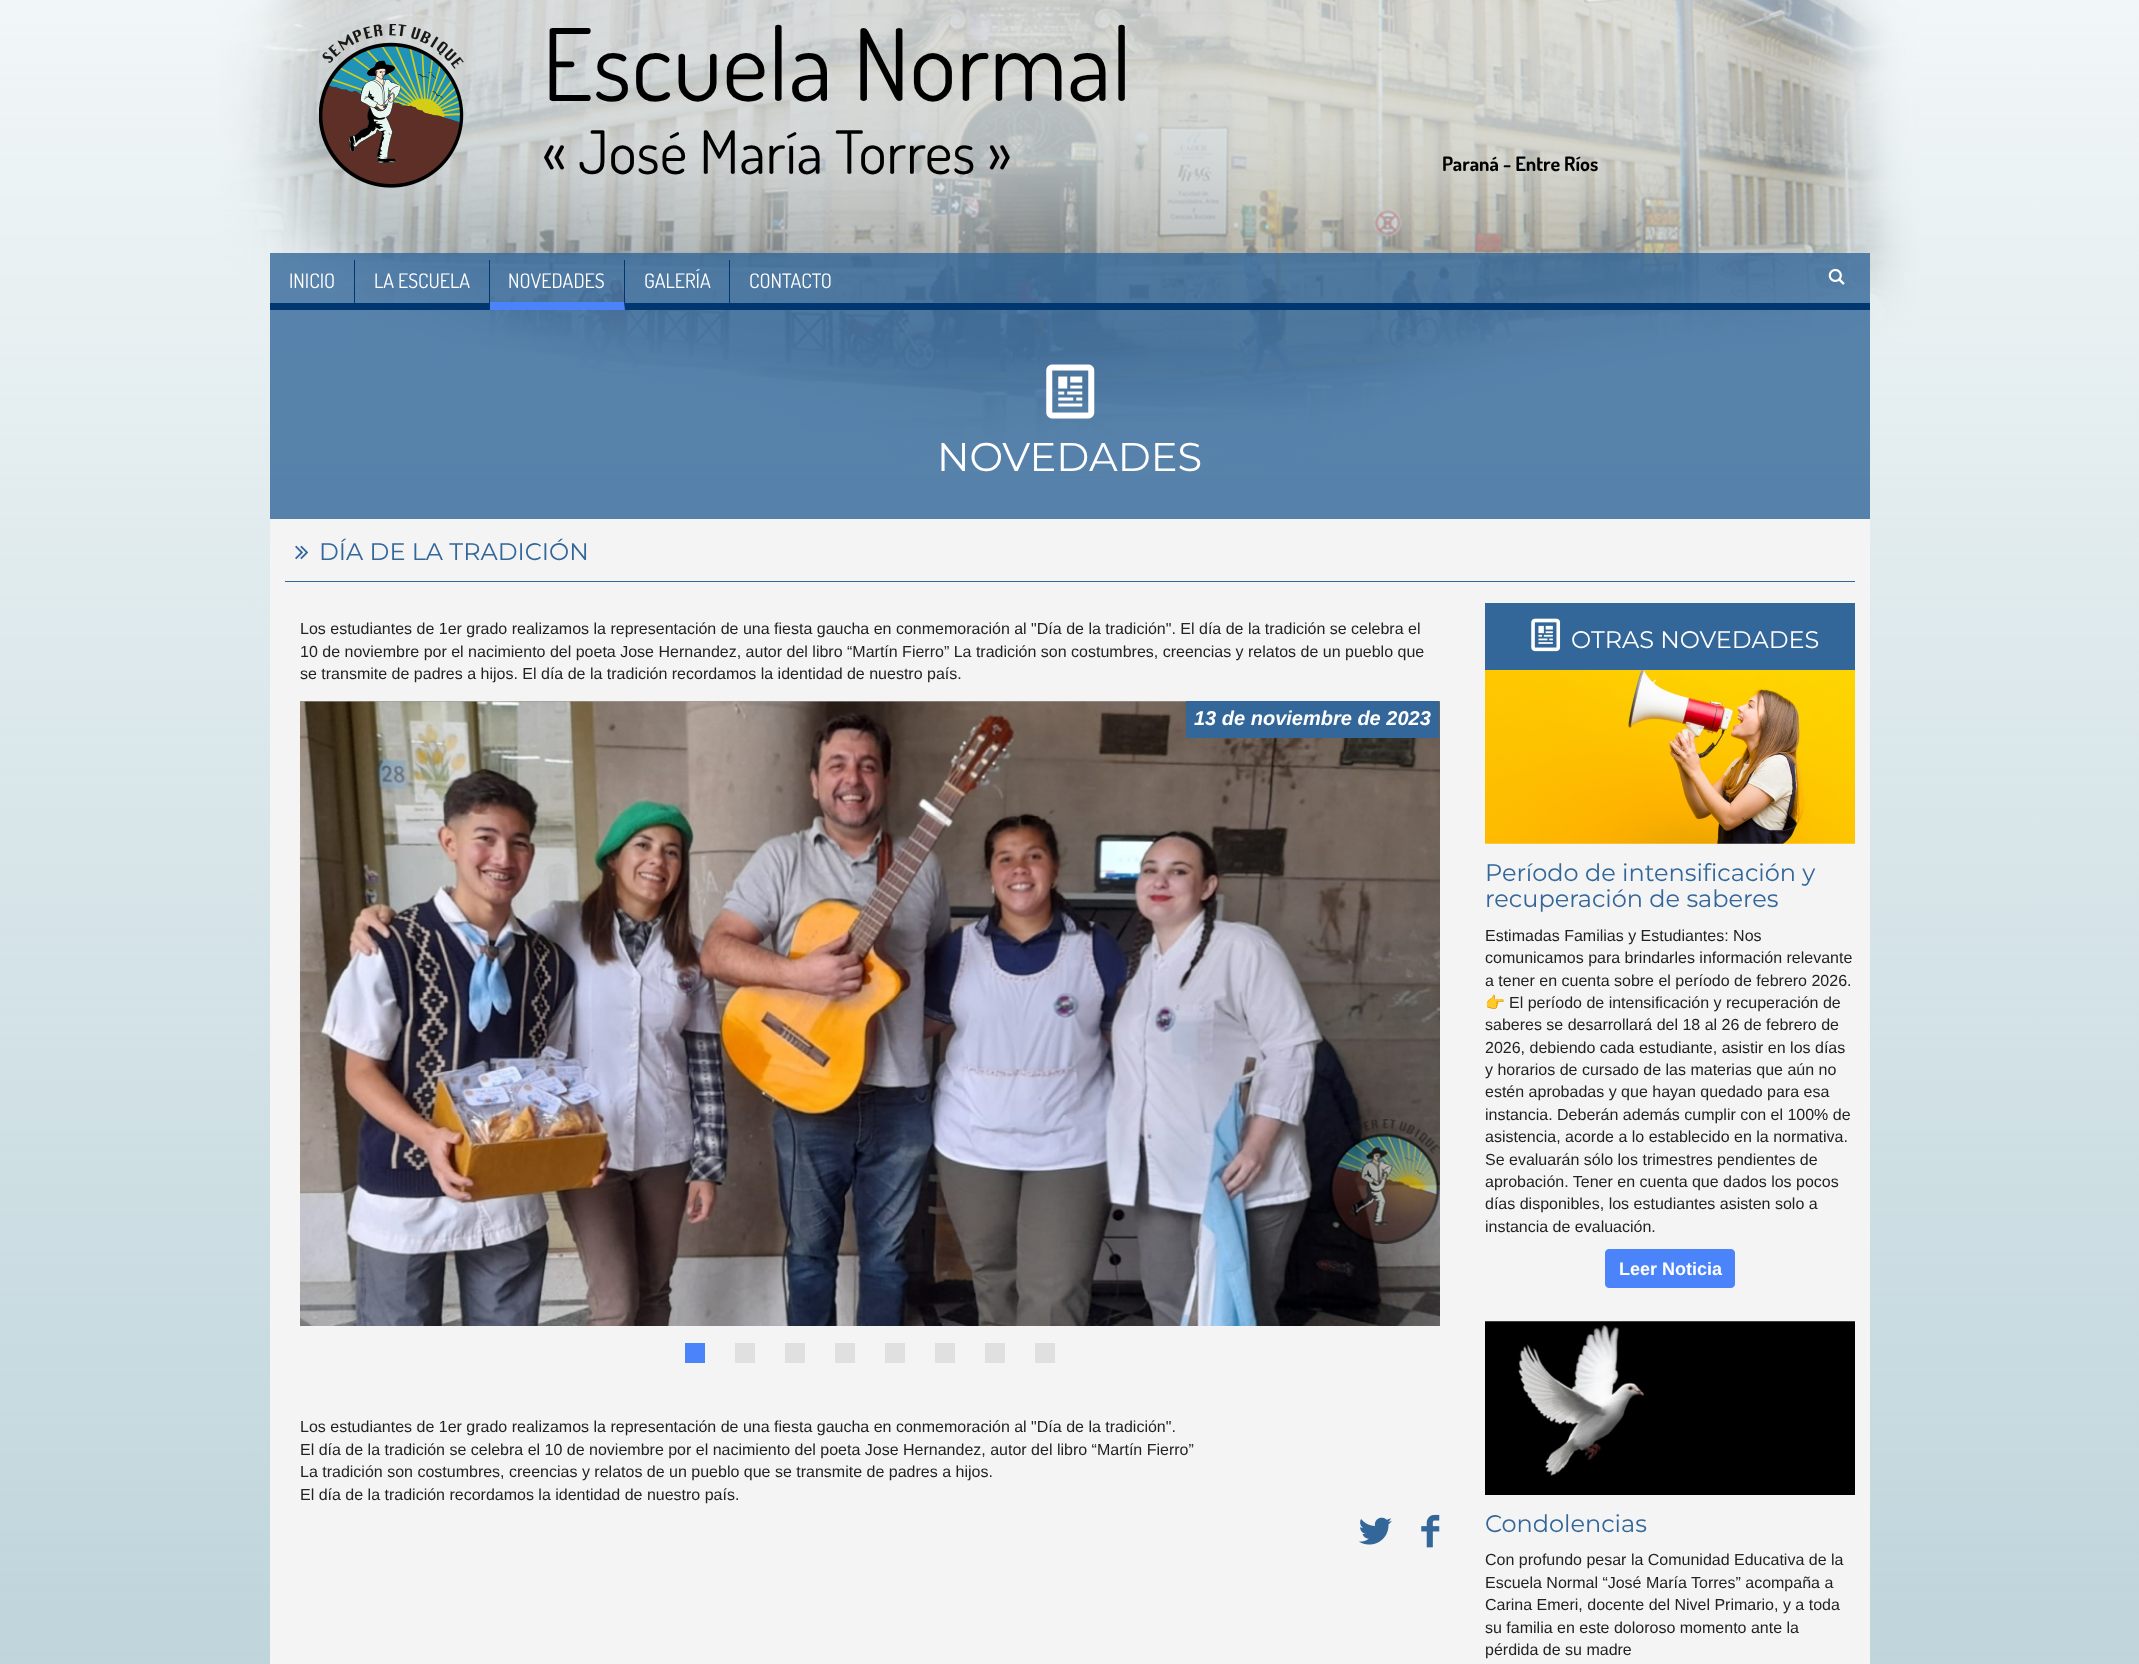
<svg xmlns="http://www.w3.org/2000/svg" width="2139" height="1664">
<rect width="100%" height="100%" fill="#fff"/>
<image x="0" y="0" width="2139" height="1664" href="media/1.png"/>
<image x="319" y="24" width="145" height="164" href="media/2.png"/>
<text x="542" y="101" style="font-family:Dosis;font-size:100px;fill:#000">Escuela Normal</text>
<text x="542" y="174" style="font-family:Dosis;font-size:60px;fill:#000">« José María Torres »</text>
<text x="1442" y="171" style="font-family:Dosis;font-size:20px;font-weight:bold;fill:#000">Paraná - Entre Ríos</text>
<rect x="270" y="253" width="1600" height="50" fill="#336699cc"/>
<rect x="270" y="303" width="1600" height="7" fill="#003770"/>
<rect x="354" y="260" width="1" height="50" fill="#003770"/>
<text x="289" y="288" style="font-family:Dosis;font-size:20px;fill:#fff">INICIO</text>
<rect x="489" y="260" width="1" height="50" fill="#003770"/>
<text x="374" y="288" style="font-family:Dosis;font-size:20px;fill:#fff">LA ESCUELA</text>
<path d="M625 260v50l-1-8v-42z" fill="#003770"/>
<path d="M625 310h-135v-8h134z" fill="#4b84fa"/>
<text x="508" y="288" style="font-family:Dosis;font-size:20px;fill:#fff">NOVEDADES</text>
<rect x="729" y="260" width="1" height="50" fill="#003770"/>
<text x="644" y="288" style="font-family:Dosis;font-size:20px;fill:#fff">GALERÍA</text>
<text x="749" y="288" style="font-family:Dosis;font-size:20px;fill:#fff">CONTACTO</text>
<image x="1828" y="268" width="17" height="17" href="media/3.png"/>
<rect x="270" y="310" width="1600" height="209" fill="#336699cc"/>
<image x="1046" y="364" width="49" height="55" href="media/4.png"/>
<text x="937" y="471" style="font-family:Montserrat;font-size:40px;font-weight:100;fill:#fff">NOVEDADES</text>
<rect x="270" y="519" width="1600" height="1145" fill="#f4f4f4"/>
<rect x="285" y="581" width="1570" height="1" fill="#369"/>
<image x="295" y="545" width="14" height="15" href="media/5.png"/>
<text x="319" y="560" style="font-family:Montserrat;font-size:24px;font-weight:100;fill:#369">DÍA DE LA TRADICIÓN</text>
<text x="300" y="634" style="font-family:Liberation Sans;font-size:16px;fill:#222">Los estudiantes de 1er grado realizamos la representación de una fiesta gaucha en conmemoración al "Día de la tradición". El día de la tradición se celebra el</text>
<text x="300" y="657" style="font-family:Liberation Sans;font-size:16px;fill:#222">10 de noviembre por el nacimiento del poeta Jose Hernandez, autor del libro “Martín Fierro” La tradición son costumbres, creencias y relatos de un pueblo que</text>
<text x="300" y="679" style="font-family:Liberation Sans;font-size:16px;fill:#222">se transmite de padres a hijos. El día de la tradición recordamos la identidad de nuestro país.</text>
<rect x="300" y="701" width="1140" height="1" fill="#9e9e9e"/>
<image x="300" y="701" width="1140" height="625" href="media/6.png"/>
<rect x="685" y="1343" width="20" height="20" fill="#4b84fa"/>
<rect x="735" y="1343" width="20" height="20" fill="#e0e0e0"/>
<rect x="785" y="1343" width="20" height="20" fill="#e0e0e0"/>
<rect x="835" y="1343" width="20" height="20" fill="#e0e0e0"/>
<rect x="885" y="1343" width="20" height="20" fill="#e0e0e0"/>
<rect x="935" y="1343" width="20" height="20" fill="#e0e0e0"/>
<rect x="985" y="1343" width="20" height="20" fill="#e0e0e0"/>
<rect x="1035" y="1343" width="20" height="20" fill="#e0e0e0"/>
<rect x="1186" y="701" width="253" height="37" fill="#369"/>
<text x="1194" y="725" style="font-family:Liberation Sans;font-size:20px;font-weight:bold;font-style:italic;fill:#fff">13 de noviembre de 2023</text>
<text x="300" y="1432" style="font-family:Liberation Sans;font-size:16px;fill:#222">Los estudiantes de 1er grado realizamos la representación de una fiesta gaucha en conmemoración al "Día de la tradición".</text>
<text x="300" y="1455" style="font-family:Liberation Sans;font-size:16px;fill:#222">El día de la tradición se celebra el 10 de noviembre por el nacimiento del poeta Jose Hernandez, autor del libro “Martín Fierro”</text>
<text x="300" y="1477" style="font-family:Liberation Sans;font-size:16px;fill:#222">La tradición son costumbres, creencias y relatos de un pueblo que se transmite de padres a hijos.</text>
<text x="300" y="1500" style="font-family:Liberation Sans;font-size:16px;fill:#222">El día de la tradición recordamos la identidad de nuestro país.</text>
<image x="1359" y="1517" width="33" height="28" href="media/7.png"/>
<image x="1421" y="1514" width="19" height="34" href="media/8.png"/>
<rect x="1485" y="603" width="370" height="67" fill="#369"/>
<image x="1531" y="618" width="30" height="34" href="media/9.png"/>
<text x="1571" y="648" style="font-family:Montserrat;font-size:24px;font-weight:100;fill:#fff">OTRAS NOVEDADES</text>
<image x="1485" y="670" width="370" height="174" href="media/10.png"/>
<text x="1485" y="881" style="font-family:Montserrat;font-size:24px;font-weight:100;fill:#369">Período de intensificación y</text>
<text x="1485" y="907" style="font-family:Montserrat;font-size:24px;font-weight:100;fill:#369">recuperación de saberes</text>
<text x="1485" y="941" style="font-family:Liberation Sans;font-size:16px;fill:#222">Estimadas Familias y Estudiantes: Nos</text>
<text x="1485" y="963" style="font-family:Liberation Sans;font-size:16px;fill:#222">comunicamos para brindarles información relevante</text>
<text x="1485" y="986" style="font-family:Liberation Sans;font-size:16px;fill:#222">a tener en cuenta sobre el período de febrero 2026.</text>
<text x="1485" y="1008" style="font-family:Noto Color Emoji;font-size:16px;fill:#222">👉</text>
<text x="1509" y="1008" style="font-family:Liberation Sans;font-size:16px;fill:#222">El período de intensificación y recuperación de</text>
<text x="1485" y="1030" style="font-family:Liberation Sans;font-size:16px;fill:#222">saberes se desarrollará del 18 al 26 de febrero de</text>
<text x="1485" y="1053" style="font-family:Liberation Sans;font-size:16px;fill:#222">2026, debiendo cada estudiante, asistir en los días</text>
<text x="1485" y="1075" style="font-family:Liberation Sans;font-size:16px;fill:#222">y horarios de cursado de las materias que aún no</text>
<text x="1485" y="1097" style="font-family:Liberation Sans;font-size:16px;fill:#222">estén aprobadas y que hayan quedado para esa</text>
<text x="1485" y="1120" style="font-family:Liberation Sans;font-size:16px;fill:#222">instancia. Deberán además cumplir con el 100% de</text>
<text x="1485" y="1142" style="font-family:Liberation Sans;font-size:16px;fill:#222">asistencia, acorde a lo establecido en la normativa.</text>
<text x="1485" y="1165" style="font-family:Liberation Sans;font-size:16px;fill:#222">Se evaluarán sólo los trimestres pendientes de</text>
<text x="1485" y="1187" style="font-family:Liberation Sans;font-size:16px;fill:#222">aprobación. Tener en cuenta que dados los pocos</text>
<text x="1485" y="1209" style="font-family:Liberation Sans;font-size:16px;fill:#222">días disponibles, los estudiantes asisten solo a</text>
<text x="1485" y="1232" style="font-family:Liberation Sans;font-size:16px;fill:#222">instancia de evaluación.</text>
<rect x="1605.5" y="1249.5" width="129" height="38" rx="3.5" fill="#4b84fa" stroke="#4b84fa"/>
<text x="1619" y="1275" style="font-family:Liberation Sans;font-size:18px;font-weight:bold;fill:#fff">Leer Noticia</text>
<image x="1485" y="1321" width="370" height="174" href="media/11.png"/>
<text x="1485" y="1532" style="font-family:Montserrat;font-size:24px;font-weight:100;fill:#369">Condolencias</text>
<text x="1485" y="1565" style="font-family:Liberation Sans;font-size:16px;fill:#222">Con profundo pesar la Comunidad Educativa de la</text>
<text x="1485" y="1588" style="font-family:Liberation Sans;font-size:16px;fill:#222">Escuela Normal “José María Torres” acompaña a</text>
<text x="1485" y="1610" style="font-family:Liberation Sans;font-size:16px;fill:#222">Carina Emeri, docente del Nivel Primario, y a toda</text>
<text x="1485" y="1633" style="font-family:Liberation Sans;font-size:16px;fill:#222">su familia en este doloroso momento ante la</text>
<text x="1485" y="1655" style="font-family:Liberation Sans;font-size:16px;fill:#222">pérdida de su madre</text>
</svg>
